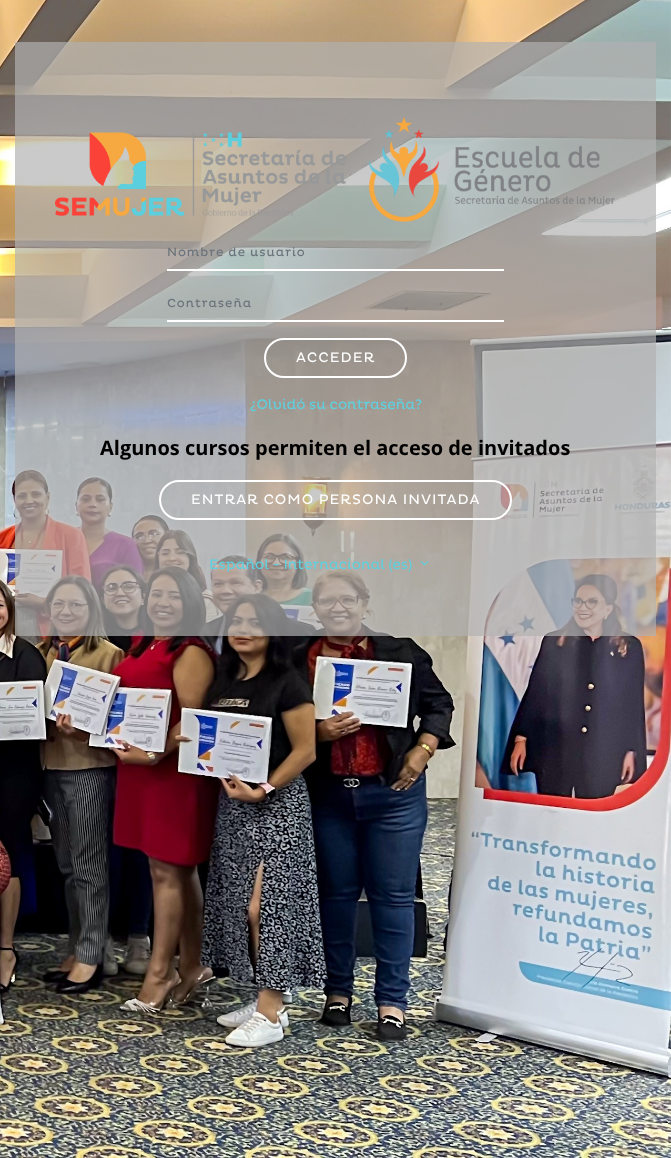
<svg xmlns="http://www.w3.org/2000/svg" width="671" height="1158">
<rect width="100%" height="100%" fill="#fff"/>
<image x="0" y="0" width="671" height="1158" href="media/1.png"/>
<rect x="15" y="42" width="641" height="594" fill="#00000066"/>
<rect x="15" y="42" width="641" height="594" fill="#ffffff7a"/>
<image x="55" y="117" width="560" height="105" href="media/2.png"/>
<rect x="167" y="269" width="337" height="2" fill="#fff"/>
<text x="167" y="256" style="font-family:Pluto;font-size:12px;letter-spacing:1px;fill:#6a737b">Nombre de usuario</text>
<rect x="167" y="320" width="337" height="2" fill="#fff"/>
<text x="167" y="307" style="font-family:Pluto;font-size:12px;letter-spacing:1px;fill:#6a737b">Contraseña</text>
<rect x="265" y="339" width="141" height="38" rx="19" fill="none" stroke="#fff" stroke-width="2"/>
<text x="296" y="362" style="font-family:Pluto;font-size:14px;letter-spacing:1px;fill:#fff">ACCEDER</text>
<text x="250" y="409" style="font-family:Pluto;font-size:14px;fill:#5fd0df">¿Olvidó su contraseña?</text>
<text x="100" y="455" style="font-family:Open Sans;font-size:20px;font-weight:bold;fill:#000">Algunos cursos permiten el acceso de invitados</text>
<rect x="160" y="481" width="351" height="38" rx="19" fill="none" stroke="#fff" stroke-width="2"/>
<text x="191" y="504" style="font-family:Pluto;font-size:14px;letter-spacing:1px;fill:#fff">ENTRAR COMO PERSONA INVITADA</text>
<text x="209" y="569" style="font-family:Pluto;font-size:14px;fill:#5fd0df">Español - Internacional (es)</text>
<image x="420" y="561" width="9" height="5" href="media/3.png"/>
</svg>
